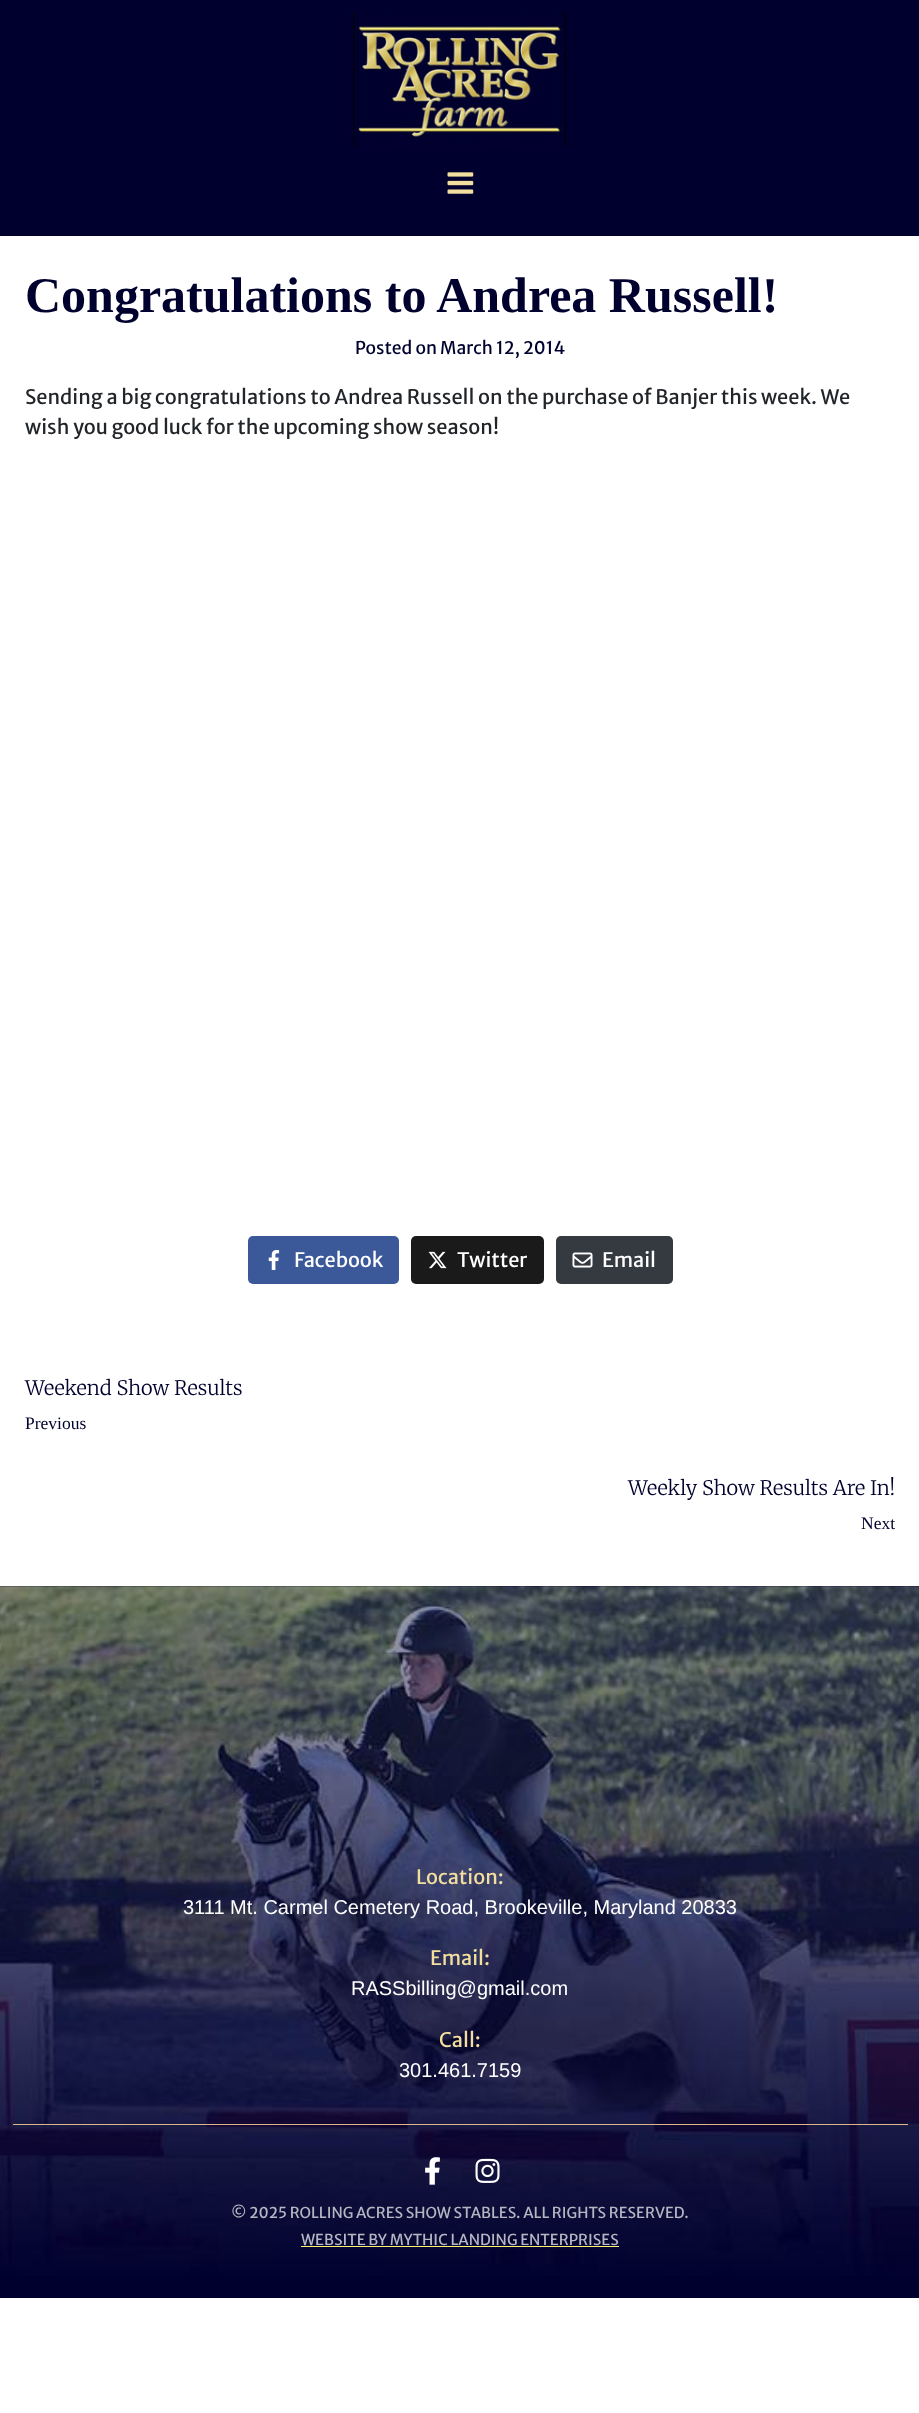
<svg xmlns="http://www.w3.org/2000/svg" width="919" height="2413">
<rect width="100%" height="100%" fill="#fff"/>
<rect width="919" height="236" fill="#00002e"/>
<image x="350" y="12" width="220" height="135" href="media/1.png"/>
<image x="447" y="172" width="27" height="22" href="media/2.png"/>
<text x="25" y="312" style="font-family:Liberation Serif;font-size:50px;font-weight:bold;fill:#00002e">Congratulations to Andrea Russell!</text>
<text x="355" y="354" style="font-family:Merriweather Sans;font-size:17.5px;fill:#00002e">Posted on March 12, 2014</text>
<text x="25" y="404" style="font-family:Merriweather Sans;font-size:20px;fill:#212529">Sending a big congratulations to Andrea Russell on the purchase of Banjer this week. We</text>
<text x="25" y="434" style="font-family:Merriweather Sans;font-size:20px;fill:#212529">wish you good luck for the upcoming show season!</text>
<rect x="248" y="1236" width="151" height="48" rx="5" fill="#3b5998"/>
<image x="268" y="1250" width="12" height="20" href="media/3.png"/>
<text x="294" y="1267" style="font-family:Merriweather Sans;font-size:20px;fill:#fff">Facebook</text>
<rect x="411" y="1236" width="133" height="48" rx="5" fill="#1a1a1a"/>
<image x="428" y="1251" width="19" height="18" href="media/4.png"/>
<text x="457" y="1267" style="font-family:Merriweather Sans;font-size:20px;fill:#fff">Twitter</text>
<rect x="556" y="1236" width="117" height="48" rx="5" fill="#343a40"/>
<image x="572" y="1252" width="21" height="16" href="media/5.png"/>
<text x="602" y="1267" style="font-family:Merriweather Sans;font-size:20px;fill:#fff">Email</text>
<text x="25" y="1395" style="font-family:Merriweather;font-size:20px;font-weight:300;fill:#00002e">Weekend Show Results</text>
<text x="25" y="1429" style="font-family:Liberation Serif;font-size:17.5px;fill:#00002e">Previous</text>
<text x="628" y="1495" style="font-family:Merriweather;font-size:20px;font-weight:300;fill:#00002e">Weekly Show Results Are In!</text>
<text x="861" y="1529" style="font-family:Liberation Serif;font-size:17.5px;fill:#00002e">Next</text>
<rect y="1586" width="919" height="712" fill="#00002e"/>
<image x="0" y="1586" width="919" height="690" href="media/6.png"/>
<text x="416" y="1884" style="font-family:Merriweather Sans;font-size:20px;fill:#f2de9f">Location:</text>
<text x="183" y="1914" style="font-family:Liberation Sans;font-size:20px;fill:#fff">3111 Mt. Carmel Cemetery Road, Brookeville, Maryland 20833</text>
<text x="430" y="1965" style="font-family:Merriweather Sans;font-size:20px;fill:#f2de9f">Email:</text>
<text x="351" y="1995" style="font-family:Liberation Sans;font-size:20px;fill:#fff">RASSbilling@gmail.com</text>
<text x="439" y="2047" style="font-family:Merriweather Sans;font-size:20px;fill:#f2de9f">Call:</text>
<text x="399" y="2077" style="font-family:Liberation Sans;font-size:20px;fill:#fff">301.461.7159</text>
<rect x="13" y="2124" width="895" height="1" fill="#ddb68a"/>
<image x="425" y="2157" width="15" height="28" href="media/7.png"/>
<image x="475" y="2158" width="25" height="25" href="media/8.png"/>
<text x="231" y="2218" style="font-family:Merriweather Sans;font-size:15px;fill:#b6b6c3">© 2025 ROLLING ACRES SHOW STABLES. ALL RIGHTS RESERVED.</text>
<text x="301" y="2245" style="font-family:Merriweather Sans;font-size:15px;fill:#b6b6c3">WEBSITE BY MYTHIC LANDING ENTERPRISES</text>
<rect x="301" y="2246" width="318" height="1" fill="#fff272"/>
</svg>
